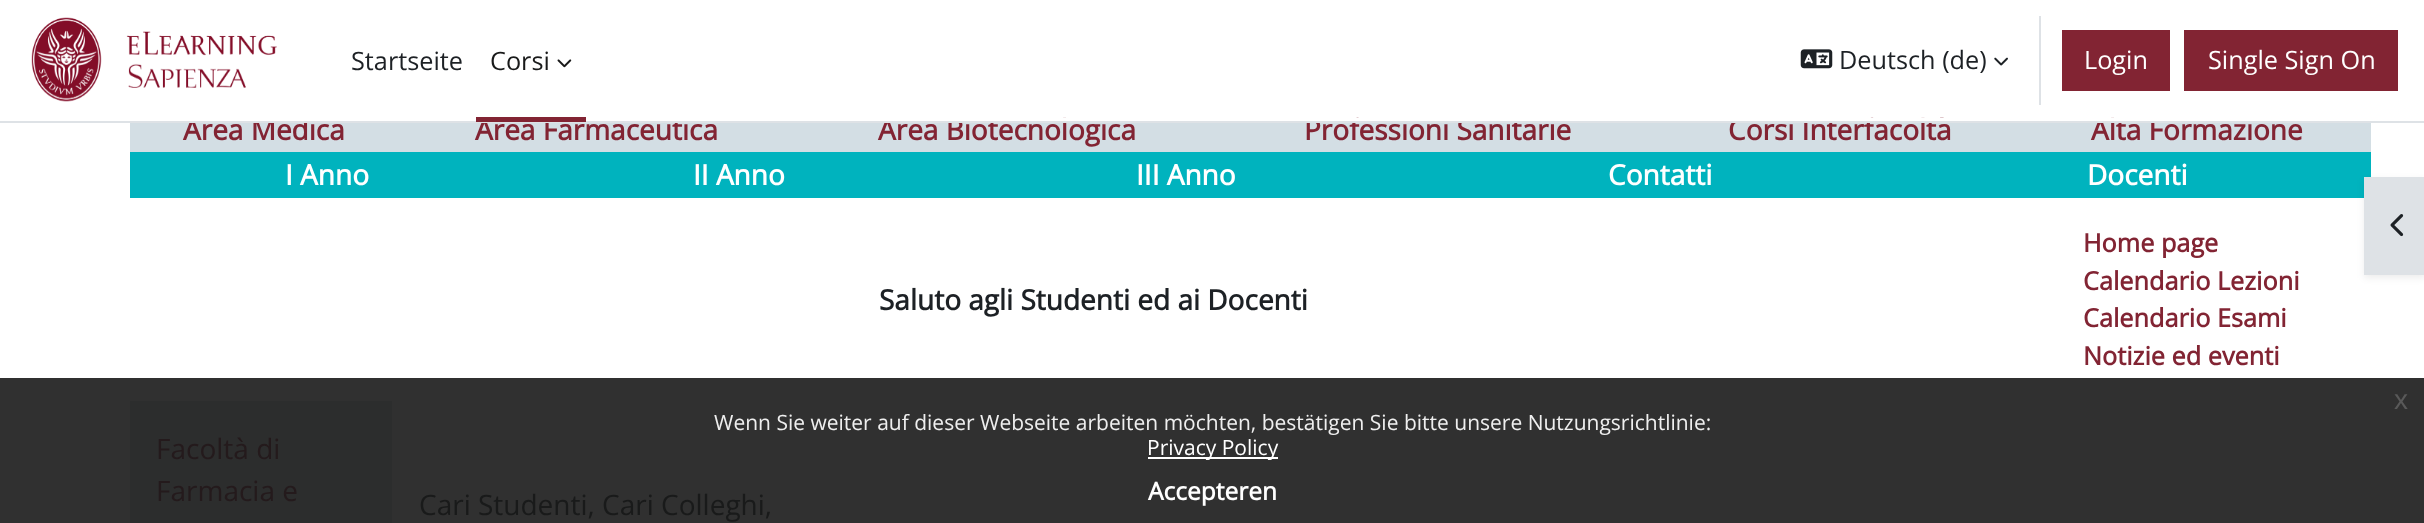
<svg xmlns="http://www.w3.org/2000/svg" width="2424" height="523">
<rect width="100%" height="100%" fill="#fff"/>
<rect y="378" width="2424" height="145" fill="#303030"/>
<rect x="130" y="123" width="2241" height="29" fill="#d3dee4"/>
<text x="183" y="140" style="font-family:Open Sans;font-size:28px;font-weight:bold;fill:#822433">Area Medica</text>
<text x="475" y="140" style="font-family:Open Sans;font-size:28px;font-weight:bold;fill:#822433">Area Farmaceutica</text>
<text x="878" y="140" style="font-family:Open Sans;font-size:28px;font-weight:bold;fill:#822433">Area Biotecnologica</text>
<text x="1304" y="140" style="font-family:Open Sans;font-size:28px;font-weight:bold;fill:#822433">Professioni Sanitarie</text>
<text x="1728" y="140" style="font-family:Open Sans;font-size:28px;font-weight:bold;fill:#822433">Corsi Interfacoltà</text>
<text x="2091" y="140" style="font-family:Open Sans;font-size:28px;font-weight:bold;fill:#822433">Alta Formazione</text>
<rect x="190" y="118" width="2062" height="3" fill="#fff"/>
<rect y="121" width="2424" height="2" fill="#dee2e6"/>
<image x="31" y="17" width="246" height="85" href="media/1.png"/>
<text x="351" y="70" style="font-family:Open Sans;font-size:25.25px;fill:#1d2125">Startseite</text>
<rect x="476" y="117" width="110" height="5" fill="#822433"/>
<text x="490" y="70" style="font-family:Open Sans;font-size:25.25px;fill:#191a1a">Corsi</text>
<image x="557" y="59" width="15" height="9" href="media/2.png"/>
<image x="1800" y="49" width="33" height="20" href="media/3.png"/>
<text x="1839" y="69" style="font-family:Open Sans;font-size:25.25px;fill:#1d2125">Deutsch (de)</text>
<image x="1994" y="57" width="14" height="9" href="media/4.png"/>
<rect x="2039" y="16" width="2" height="89" fill="#dee2e6"/>
<rect x="2062" y="30" width="108" height="61" fill="#822433"/>
<text x="2084" y="69" style="font-family:Open Sans;font-size:25.25px;fill:#fff">Login</text>
<rect x="2184" y="30" width="214" height="61" fill="#822433"/>
<text x="2208" y="69" style="font-family:Open Sans;font-size:25.25px;fill:#fff">Single Sign On</text>
<rect x="130" y="152" width="2241" height="46" fill="#00b3be"/>
<text x="285" y="185" style="font-family:Open Sans;font-size:28px;font-weight:bold;fill:#fff">I Anno</text>
<text x="693" y="185" style="font-family:Open Sans;font-size:28px;font-weight:bold;fill:#fff">II Anno</text>
<text x="1136" y="185" style="font-family:Open Sans;font-size:28px;font-weight:bold;fill:#fff">III Anno</text>
<text x="1608" y="185" style="font-family:Open Sans;font-size:28px;font-weight:bold;fill:#fff">Contatti</text>
<text x="2087" y="185" style="font-family:Open Sans;font-size:28px;font-weight:bold;fill:#fff">Docenti</text>
<text x="879" y="310" style="font-family:Open Sans;font-size:28px;font-weight:bold;fill:#1d2125">Saluto agli Studenti ed ai Docenti</text>
<text x="2083" y="252" style="font-family:Open Sans;font-size:25.25px;font-weight:bold;fill:#822433">Home page</text>
<text x="2083" y="290" style="font-family:Open Sans;font-size:25.25px;font-weight:bold;fill:#822433">Calendario Lezioni</text>
<text x="2083" y="327" style="font-family:Open Sans;font-size:25.25px;font-weight:bold;fill:#822433">Calendario Esami</text>
<text x="2083" y="365" style="font-family:Open Sans;font-size:25.25px;font-weight:bold;fill:#822433">Notizie ed eventi</text>
<rect x="130" y="401" width="262" height="122" fill="#2c2d2d"/>
<text x="156" y="459" style="font-family:Open Sans;font-size:28px;fill:#241a1c">Facoltà di</text>
<text x="156" y="501" style="font-family:Open Sans;font-size:28px;fill:#241a1c">Farmacia e</text>
<text x="419" y="515" style="font-family:Open Sans;font-size:28px;fill:#191a1a">Cari Studenti, Cari Colleghi,</text>
<rect x="2364" y="180" width="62" height="98" fill="#00000012" filter="blur(3.5px)"/>
<rect x="2364" y="177" width="60" height="98" fill="#dee2e6"/>
<image x="2390" y="214" width="14" height="23" href="media/5.png"/>
<text x="2394" y="409" style="font-family:Liberation Sans;font-size:28px;fill:#595959">x</text>
<text x="714" y="430" style="font-family:Open Sans;font-size:21px;fill:#efefef">Wenn Sie weiter auf dieser Webseite arbeiten möchten, bestätigen Sie bitte unsere Nutzungsrichtlinie:</text>
<rect x="1148" y="457" width="130" height="2" fill="#fff"/>
<text x="1147" y="455" style="font-family:Open Sans;font-size:21px;fill:#fff">Privacy Policy</text>
<text x="1148" y="500" style="font-family:Open Sans;font-size:24.5px;font-weight:bold;fill:#fff">Accepteren</text>
</svg>
